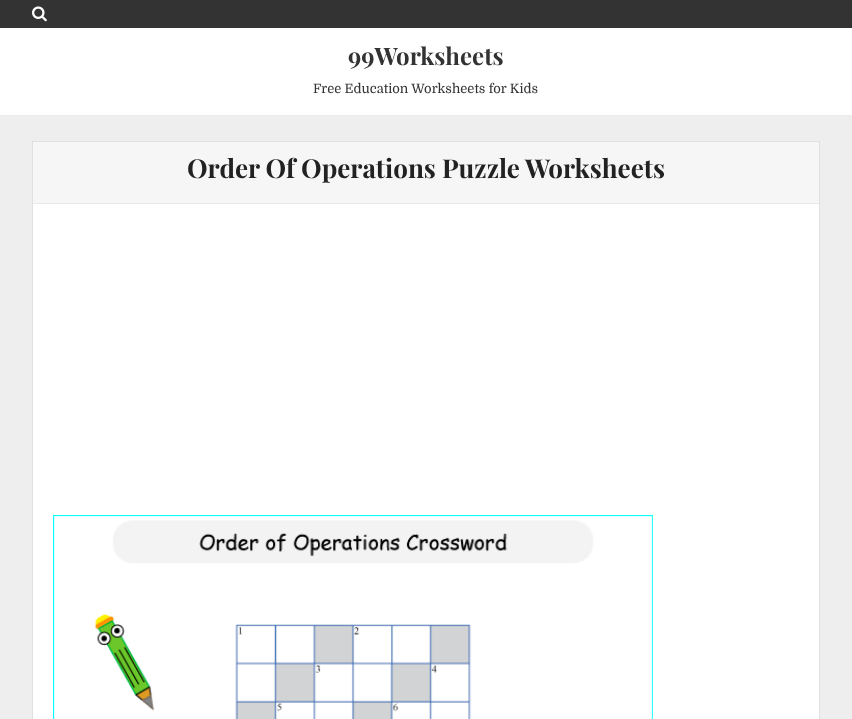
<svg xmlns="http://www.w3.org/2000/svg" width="852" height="719">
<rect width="100%" height="100%" fill="#eee"/>
<rect width="852" height="28" fill="#333"/>
<image x="32" y="6" width="15" height="16" href="media/1.png"/>
<rect y="28" width="852" height="87" fill="#fff"/>
<rect y="115" width="852" height="1" fill="#ebebec"/>
<text x="348" y="65" style="font-family:Playfair Display;font-size:24px;font-weight:bold;fill:#333">99Worksheets</text>
<text x="313" y="93" style="font-family:Domine;font-size:13px;fill:#333">Free Education Worksheets for Kids</text>
<rect x="33" y="204" width="786" height="515" fill="#fff"/>
<rect x="32.5" y="141.5" width="787" height="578" fill="none" stroke="#e0e0e0"/>
<rect x="33" y="142" width="786" height="61" fill="#f6f6f6"/>
<rect x="33" y="203" width="786" height="1" fill="#e9e9e9"/>
<text x="187" y="178" style="font-family:Playfair Display;font-size:26px;font-weight:bold;fill:#222">Order Of Operations Puzzle Worksheets</text>
<image x="53" y="514" width="600" height="205" href="media/2.png"/>
</svg>
